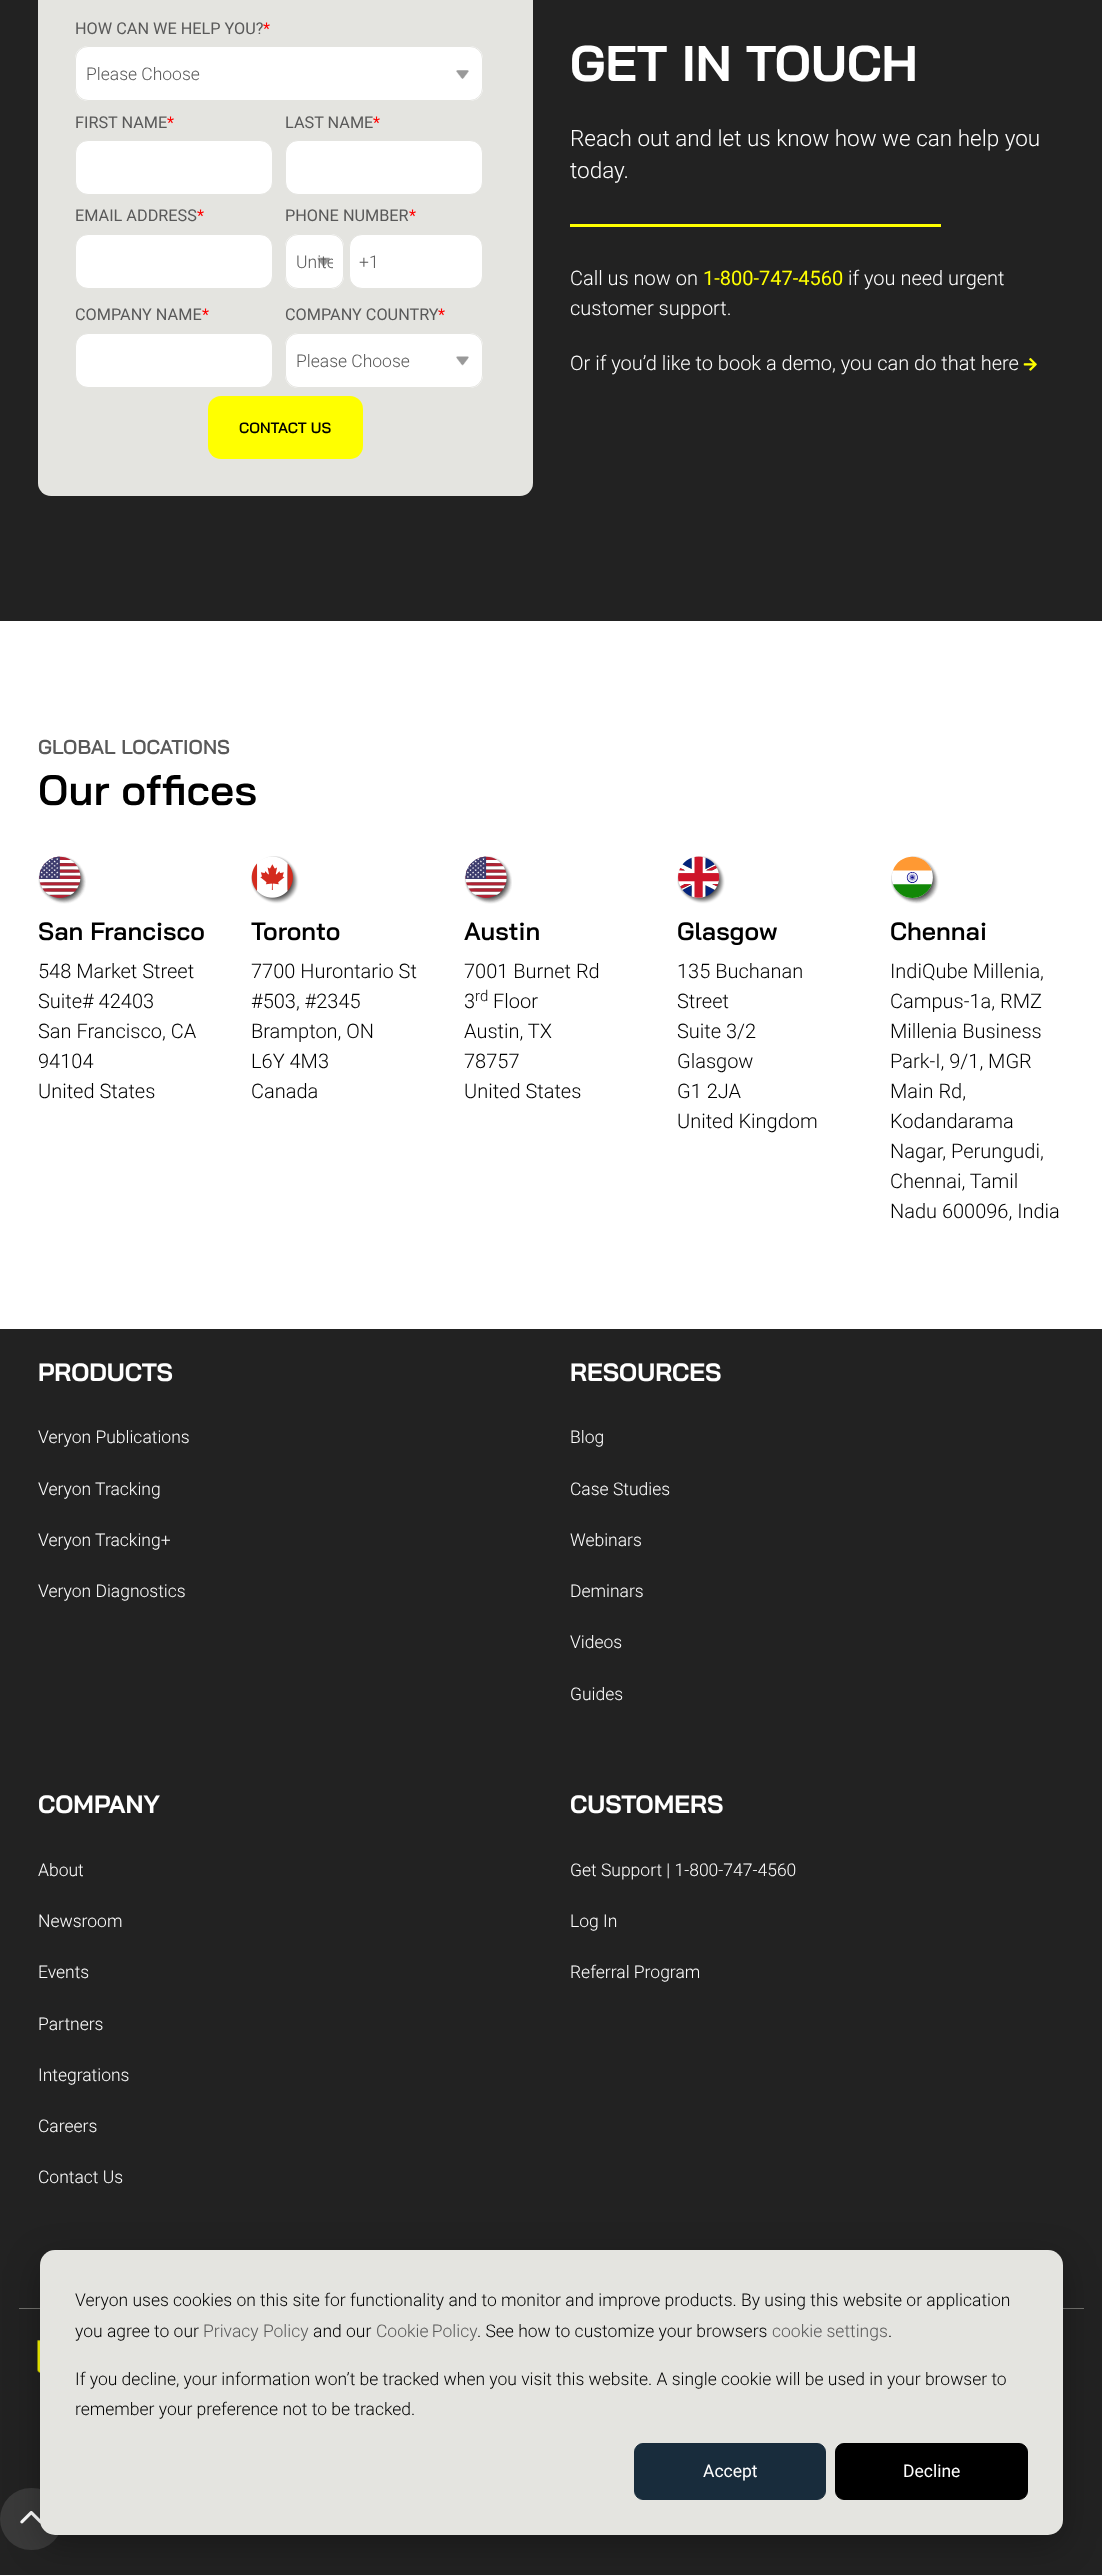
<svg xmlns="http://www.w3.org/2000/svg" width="1102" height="2575">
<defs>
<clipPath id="clip1"><rect x="296" y="248" width="37" height="27"/></clipPath>
</defs>
<rect width="100%" height="100%" fill="#fff"/>
<rect width="1102" height="621" fill="#222"/>
<rect x="38" y="-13" width="495" height="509" rx="13" fill="#e4e4e0"/>
<text x="75" y="34" style="font-family:Roboto;font-size:16.25px;fill:#595959">HOW CAN WE HELP YOU?</text>
<text x="263" y="34" style="font-family:Roboto;font-size:16.25px;fill:#f00">*</text>
<rect x="75" y="46" width="408" height="55" rx="13" fill="#fff"/>
<image x="456" y="70" width="13" height="9" href="media/1.png"/>
<rect x="75.5" y="46.5" width="407" height="54" rx="12.5" fill="none" stroke="#e4e4e0"/>
<text x="86" y="80" style="font-family:Roboto;font-size:17.5px;font-weight:300;fill:#595959">Please Choose</text>
<text x="75" y="128" style="font-family:Roboto;font-size:16.25px;fill:#595959">FIRST NAME</text>
<text x="167" y="128" style="font-family:Roboto;font-size:16.25px;fill:#f00">*</text>
<rect x="75.5" y="140.5" width="197" height="54" rx="12.5" fill="#fff" stroke="#e4e4e0"/>
<text x="285" y="128" style="font-family:Roboto;font-size:16.25px;fill:#595959">LAST NAME</text>
<text x="373" y="128" style="font-family:Roboto;font-size:16.25px;fill:#f00">*</text>
<rect x="285.5" y="140.5" width="197" height="54" rx="12.5" fill="#fff" stroke="#e4e4e0"/>
<text x="75" y="221" style="font-family:Roboto;font-size:16.25px;fill:#595959">EMAIL ADDRESS</text>
<text x="197" y="221" style="font-family:Roboto;font-size:16.25px;fill:#f00">*</text>
<rect x="75.5" y="234.5" width="197" height="54" rx="12.5" fill="#fff" stroke="#e4e4e0"/>
<text x="285" y="221" style="font-family:Roboto;font-size:16.25px;fill:#595959">PHONE NUMBER</text>
<text x="409" y="221" style="font-family:Roboto;font-size:16.25px;fill:#f00">*</text>
<rect x="285" y="234" width="59" height="55" rx="13" fill="#fff"/>
<image x="317" y="257" width="13" height="10" href="media/2.png"/>
<rect x="285.5" y="234.5" width="58" height="54" rx="12.5" fill="none" stroke="#e4e4e0"/>
<g clip-path="url(#clip1)">
<text x="296" y="268" style="font-family:Roboto;font-size:17.5px;font-weight:300;fill:#595959">Unite</text>
</g>
<rect x="349.5" y="234.5" width="133" height="54" rx="12.5" fill="#fff" stroke="#e4e4e0"/>
<text x="359" y="268" style="font-family:Roboto;font-size:17.5px;font-weight:300;fill:#595959">+1</text>
<text x="75" y="320" style="font-family:Roboto;font-size:16.25px;fill:#595959">COMPANY NAME</text>
<text x="202" y="320" style="font-family:Roboto;font-size:16.25px;fill:#f00">*</text>
<rect x="75.5" y="333.5" width="197" height="54" rx="12.5" fill="#fff" stroke="#e4e4e0"/>
<text x="285" y="320" style="font-family:Roboto;font-size:16.25px;fill:#595959">COMPANY COUNTRY</text>
<text x="438" y="320" style="font-family:Roboto;font-size:16.25px;fill:#f00">*</text>
<rect x="285" y="333" width="198" height="55" rx="13" fill="#fff"/>
<image x="456" y="356" width="13" height="10" href="media/3.png"/>
<rect x="285.5" y="333.5" width="197" height="54" rx="12.5" fill="none" stroke="#e4e4e0"/>
<text x="296" y="367" style="font-family:Roboto;font-size:17.5px;font-weight:300;fill:#595959">Please Choose</text>
<rect x="208" y="396" width="155" height="63" rx="13" fill="#ff0"/>
<text x="239" y="433" style="font-family:Bai Jamjuree;font-size:15px;font-weight:600;fill:#000">CONTACT US</text>
<text x="570" y="81" style="font-family:Bai Jamjuree;font-size:50px;font-weight:bold;fill:#fff">GET IN TOUCH</text>
<text x="570" y="146" style="font-family:Roboto;font-size:22.5px;font-weight:300;fill:#fff">Reach out and let us know how we can help you</text>
<text x="570" y="178" style="font-family:Roboto;font-size:22.5px;font-weight:300;fill:#fff">today.</text>
<rect x="570" y="224" width="371" height="3" fill="#ff0"/>
<text x="570" y="285" style="font-family:Roboto;font-size:20px;font-weight:300;fill:#fff">Call us now on</text>
<text x="703" y="285" style="font-family:Roboto;font-size:20px;fill:#ff0">1-800-747-4560</text>
<text x="848" y="285" style="font-family:Roboto;font-size:20px;font-weight:300;fill:#fff">if you need urgent</text>
<text x="570" y="315" style="font-family:Roboto;font-size:20px;font-weight:300;fill:#fff">customer support.</text>
<text x="570" y="370" style="font-family:Roboto;font-size:20px;font-weight:300;fill:#fff">Or if you’d like to book a demo, you can do that here</text>
<image x="1023" y="358" width="14" height="13" href="media/4.png"/>
<text x="38" y="754" style="font-family:Bai Jamjuree;font-size:20px;font-weight:600;fill:#595959">GLOBAL LOCATIONS</text>
<text x="38" y="805" style="font-family:Bai Jamjuree;font-size:42.5px;font-weight:600;fill:#000">Our offices</text>
<image x="38" y="856" width="48" height="48" href="media/5.png"/>
<text x="38" y="940" style="font-family:Bai Jamjuree;font-size:25px;font-weight:600;fill:#000">San Francisco</text>
<text x="38" y="978" style="font-family:Roboto;font-size:20px;font-weight:300;fill:#000">548 Market Street</text>
<text x="38" y="1008" style="font-family:Roboto;font-size:20px;font-weight:300;fill:#000">Suite# 42403</text>
<text x="38" y="1038" style="font-family:Roboto;font-size:20px;font-weight:300;fill:#000">San Francisco, CA</text>
<text x="38" y="1068" style="font-family:Roboto;font-size:20px;font-weight:300;fill:#000">94104</text>
<text x="38" y="1098" style="font-family:Roboto;font-size:20px;font-weight:300;fill:#000">United States</text>
<image x="251" y="856" width="48" height="48" href="media/6.png"/>
<text x="251" y="940" style="font-family:Bai Jamjuree;font-size:25px;font-weight:600;fill:#000">Toronto</text>
<text x="251" y="978" style="font-family:Roboto;font-size:20px;font-weight:300;fill:#000">7700 Hurontario St</text>
<text x="251" y="1008" style="font-family:Roboto;font-size:20px;font-weight:300;fill:#000">#503, #2345</text>
<text x="251" y="1038" style="font-family:Roboto;font-size:20px;font-weight:300;fill:#000">Brampton, ON</text>
<text x="251" y="1068" style="font-family:Roboto;font-size:20px;font-weight:300;fill:#000">L6Y 4M3</text>
<text x="251" y="1098" style="font-family:Roboto;font-size:20px;font-weight:300;fill:#000">Canada</text>
<image x="464" y="856" width="48" height="48" href="media/7.png"/>
<text x="464" y="940" style="font-family:Bai Jamjuree;font-size:25px;font-weight:600;fill:#000">Austin</text>
<text x="464" y="978" style="font-family:Roboto;font-size:20px;font-weight:300;fill:#000">7001 Burnet Rd</text>
<text x="464" y="1008" style="font-family:Roboto;font-size:20px;font-weight:300;fill:#000">3</text>
<text x="475" y="1001" style="font-family:Roboto;font-size:15px;font-weight:300;fill:#000">rd</text>
<text x="493" y="1008" style="font-family:Roboto;font-size:20px;font-weight:300;fill:#000">Floor</text>
<text x="464" y="1038" style="font-family:Roboto;font-size:20px;font-weight:300;fill:#000">Austin, TX</text>
<text x="464" y="1068" style="font-family:Roboto;font-size:20px;font-weight:300;fill:#000">78757</text>
<text x="464" y="1098" style="font-family:Roboto;font-size:20px;font-weight:300;fill:#000">United States</text>
<image x="677" y="856" width="48" height="48" href="media/8.png"/>
<text x="677" y="940" style="font-family:Bai Jamjuree;font-size:25px;font-weight:600;fill:#000">Glasgow</text>
<text x="677" y="978" style="font-family:Roboto;font-size:20px;font-weight:300;fill:#000">135 Buchanan</text>
<text x="677" y="1008" style="font-family:Roboto;font-size:20px;font-weight:300;fill:#000">Street</text>
<text x="677" y="1038" style="font-family:Roboto;font-size:20px;font-weight:300;fill:#000">Suite 3/2</text>
<text x="677" y="1068" style="font-family:Roboto;font-size:20px;font-weight:300;fill:#000">Glasgow</text>
<text x="677" y="1098" style="font-family:Roboto;font-size:20px;font-weight:300;fill:#000">G1 2JA</text>
<text x="677" y="1128" style="font-family:Roboto;font-size:20px;font-weight:300;fill:#000">United Kingdom</text>
<image x="891" y="856" width="48" height="48" href="media/9.png"/>
<text x="890" y="940" style="font-family:Bai Jamjuree;font-size:25px;font-weight:600;fill:#000">Chennai</text>
<text x="890" y="978" style="font-family:Roboto;font-size:20px;font-weight:300;fill:#000">IndiQube Millenia,</text>
<text x="890" y="1008" style="font-family:Roboto;font-size:20px;font-weight:300;fill:#000">Campus-1a, RMZ</text>
<text x="890" y="1038" style="font-family:Roboto;font-size:20px;font-weight:300;fill:#000">Millenia Business</text>
<text x="890" y="1068" style="font-family:Roboto;font-size:20px;font-weight:300;fill:#000">Park-I, 9/1, MGR</text>
<text x="890" y="1098" style="font-family:Roboto;font-size:20px;font-weight:300;fill:#000">Main Rd,</text>
<text x="890" y="1128" style="font-family:Roboto;font-size:20px;font-weight:300;fill:#000">Kodandarama</text>
<text x="890" y="1158" style="font-family:Roboto;font-size:20px;font-weight:300;fill:#000">Nagar, Perungudi,</text>
<text x="890" y="1188" style="font-family:Roboto;font-size:20px;font-weight:300;fill:#000">Chennai, Tamil</text>
<text x="890" y="1218" style="font-family:Roboto;font-size:20px;font-weight:300;fill:#000">Nadu 600096, India</text>
<rect y="1329" width="1102" height="1246" fill="#222"/>
<text x="38" y="1381" style="font-family:Bai Jamjuree;font-size:25px;font-weight:bold;fill:#fff">PRODUCTS</text>
<text x="38" y="1443" style="font-family:Roboto;font-size:17.5px;font-weight:300;fill:#fff">Veryon Publications</text>
<text x="38" y="1495" style="font-family:Roboto;font-size:17.5px;font-weight:300;fill:#fff">Veryon Tracking</text>
<text x="38" y="1546" style="font-family:Roboto;font-size:17.5px;font-weight:300;fill:#fff">Veryon Tracking+</text>
<text x="38" y="1597" style="font-family:Roboto;font-size:17.5px;font-weight:300;fill:#fff">Veryon Diagnostics</text>
<text x="570" y="1381" style="font-family:Bai Jamjuree;font-size:25px;font-weight:bold;fill:#fff">RESOURCES</text>
<text x="570" y="1443" style="font-family:Roboto;font-size:17.5px;font-weight:300;fill:#fff">Blog</text>
<text x="570" y="1495" style="font-family:Roboto;font-size:17.5px;font-weight:300;fill:#fff">Case Studies</text>
<text x="570" y="1546" style="font-family:Roboto;font-size:17.5px;font-weight:300;fill:#fff">Webinars</text>
<text x="570" y="1597" style="font-family:Roboto;font-size:17.5px;font-weight:300;fill:#fff">Deminars</text>
<text x="570" y="1648" style="font-family:Roboto;font-size:17.5px;font-weight:300;fill:#fff">Videos</text>
<text x="570" y="1700" style="font-family:Roboto;font-size:17.5px;font-weight:300;fill:#fff">Guides</text>
<text x="38" y="1813" style="font-family:Bai Jamjuree;font-size:25px;font-weight:bold;fill:#fff">COMPANY</text>
<text x="38" y="1876" style="font-family:Roboto;font-size:17.5px;font-weight:300;fill:#fff">About</text>
<text x="38" y="1927" style="font-family:Roboto;font-size:17.5px;font-weight:300;fill:#fff">Newsroom</text>
<text x="38" y="1978" style="font-family:Roboto;font-size:17.5px;font-weight:300;fill:#fff">Events</text>
<text x="38" y="2030" style="font-family:Roboto;font-size:17.5px;font-weight:300;fill:#fff">Partners</text>
<text x="38" y="2081" style="font-family:Roboto;font-size:17.5px;font-weight:300;fill:#fff">Integrations</text>
<text x="38" y="2132" style="font-family:Roboto;font-size:17.5px;font-weight:300;fill:#fff">Careers</text>
<text x="38" y="2183" style="font-family:Roboto;font-size:17.5px;font-weight:300;fill:#fff">Contact Us</text>
<text x="570" y="1813" style="font-family:Bai Jamjuree;font-size:25px;font-weight:bold;fill:#fff">CUSTOMERS</text>
<text x="570" y="1876" style="font-family:Roboto;font-size:17.5px;font-weight:300;fill:#fff">Get Support | 1-800-747-4560</text>
<text x="570" y="1927" style="font-family:Roboto;font-size:17.5px;font-weight:300;fill:#fff">Log In</text>
<text x="570" y="1978" style="font-family:Roboto;font-size:17.5px;font-weight:300;fill:#fff">Referral Program</text>
<rect x="19" y="2308" width="1065" height="1" fill="#70706c"/>
<image x="37" y="2340" width="3" height="33" href="media/10.png"/>
<rect y="2488" width="63" height="62" rx="31" fill="#3a3a3a"/>
<image x="20" y="2511" width="21" height="13" href="media/11.png"/>
<rect x="40" y="2260" width="1023" height="285" rx="15" fill="#00000047" filter="blur(17.5px)"/>
<rect x="40" y="2250" width="1023" height="285" rx="15" fill="#e4e4e0"/>
<text x="75" y="2306" style="font-family:Roboto;font-size:17.5px;font-weight:300;fill:#000">Veryon uses cookies on this site for functionality and to monitor and improve products. By using this website or application</text>
<text x="75" y="2337" style="font-family:Roboto;font-size:17.5px;font-weight:300;fill:#000">you agree to our</text>
<text x="203" y="2337" style="font-family:Roboto;font-size:17.5px;font-weight:300;fill:#595959">Privacy Policy</text>
<text x="313" y="2337" style="font-family:Roboto;font-size:17.5px;font-weight:300;fill:#000">and our</text>
<text x="376" y="2337" word-spacing="-1" style="font-family:Roboto;font-size:17.5px;font-weight:300;fill:#595959">Cookie Policy</text>
<text x="477" y="2337" style="font-family:Roboto;font-size:17.5px;font-weight:300;fill:#000">. See how to customize your browsers</text>
<text x="772" y="2337" style="font-family:Roboto;font-size:17.5px;font-weight:300;fill:#595959">cookie settings</text>
<text x="888" y="2337" style="font-family:Roboto;font-size:17.5px;font-weight:300;fill:#000">.</text>
<text x="75" y="2385" style="font-family:Roboto;font-size:17.5px;font-weight:300;fill:#000">If you decline, your information won’t be tracked when you visit this website. A single cookie will be used in your browser to</text>
<text x="75" y="2415" style="font-family:Roboto;font-size:17.5px;font-weight:300;fill:#000">remember your preference not to be tracked.</text>
<rect x="634.5" y="2443.5" width="191" height="56" rx="8.5" fill="#182c3c" stroke="#182c3c"/>
<text x="703" y="2477" style="font-family:Roboto;font-size:17.5px;fill:#fff">Accept</text>
<rect x="835.5" y="2443.5" width="192" height="56" rx="8.5" fill="#000" stroke="#000"/>
<text x="903" y="2477" style="font-family:Roboto;font-size:17.5px;fill:#fff">Decline</text>
</svg>
